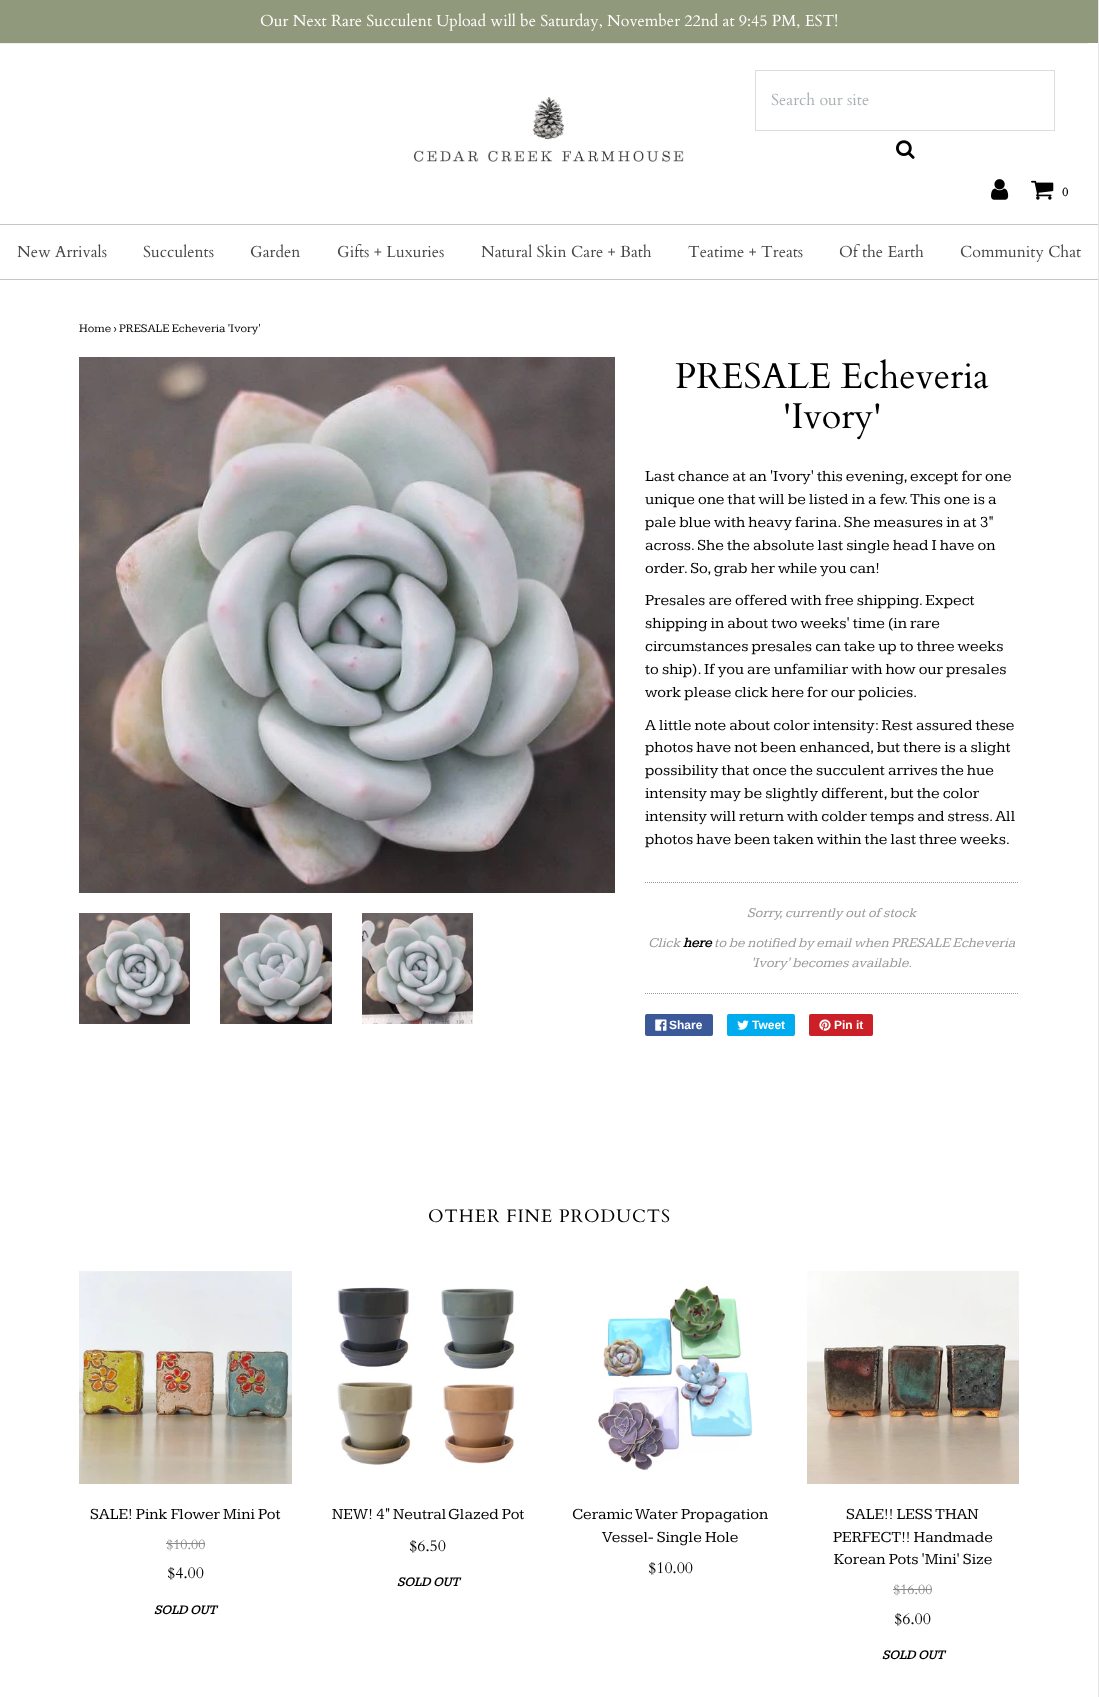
<svg xmlns="http://www.w3.org/2000/svg" width="1099" height="1697">
<rect width="100%" height="100%" fill="#fff"/>
<rect x="1098" width="1" height="1697" fill="#e6e6e6"/>
<rect width="1098" height="43" fill="#90997c"/>
<text x="260" y="26" style="font-family:Cardo;font-size:16px;fill:#fff">Our Next Rare Succulent Upload will be Saturday, November 22nd at 9:45 PM, EST!</text>
<rect y="43" width="1088" height="1" fill="#eee"/>
<image x="413" y="97" width="271" height="65" href="media/1.png"/>
<rect x="755.5" y="70.5" width="299" height="60" fill="none" stroke="#ddd"/>
<text x="771" y="105" style="font-family:Cardo;font-size:16px;fill:#aab1b4">Search our site</text>
<image x="896" y="140" width="19" height="19" href="media/2.png"/>
<image x="991" y="179" width="18" height="21" href="media/3.png"/>
<image x="1031" y="180" width="23" height="20" href="media/4.png"/>
<text x="1062" y="196" style="font-family:Cardo;font-size:12px;font-weight:bold;fill:#000">0</text>
<rect y="224" width="1098" height="1" fill="#c6c6c6"/>
<rect y="279" width="1098" height="1" fill="#c6c6c6"/>
<text x="17" y="257" style="font-family:Cardo;font-size:16px;fill:#464646">New Arrivals</text>
<text x="143" y="257" style="font-family:Cardo;font-size:16px;fill:#464646">Succulents</text>
<text x="250" y="257" style="font-family:Cardo;font-size:16px;fill:#464646">Garden</text>
<text x="337" y="257" style="font-family:Cardo;font-size:16px;fill:#464646">Gifts + Luxuries</text>
<text x="481" y="257" style="font-family:Cardo;font-size:16px;fill:#464646">Natural Skin Care + Bath</text>
<text x="688" y="257" style="font-family:Cardo;font-size:16px;fill:#464646">Teatime + Treats</text>
<text x="839" y="257" style="font-family:Cardo;font-size:16px;fill:#464646">Of the Earth</text>
<text x="960" y="257" style="font-family:Cardo;font-size:16px;fill:#464646">Community Chat</text>
<text x="79" y="332" style="font-family:Kameron;font-size:12px;fill:#000">Home › PRESALE Echeveria 'Ivory'</text>
<image x="79" y="357" width="536" height="536" href="media/5.png"/>
<image x="79" y="913" width="111" height="111" href="media/6.png"/>
<image x="220" y="913" width="112" height="111" href="media/7.png"/>
<image x="362" y="913" width="111" height="111" href="media/8.png"/>
<text x="675" y="388" style="font-family:Cardo;font-size:36px;fill:#000">PRESALE Echeveria</text>
<text x="783" y="428" style="font-family:Cardo;font-size:36px;fill:#000">'Ivory'</text>
<text x="645" y="481" style="font-family:Kameron;font-size:16px;fill:#000">Last chance at an 'Ivory' this evening, except for one</text>
<text x="645" y="504" style="font-family:Kameron;font-size:16px;fill:#000">unique one that will be listed in a few. This one is a</text>
<text x="645" y="527" style="font-family:Kameron;font-size:16px;fill:#000">pale blue with heavy farina. She measures in at 3"</text>
<text x="645" y="550" style="font-family:Kameron;font-size:16px;fill:#000">across. She the absolute last single head I have on</text>
<text x="645" y="573" style="font-family:Kameron;font-size:16px;fill:#000">order. So, grab her while you can!</text>
<text x="645" y="605" style="font-family:Kameron;font-size:16px;fill:#000">Presales are offered with free shipping. Expect</text>
<text x="645" y="628" style="font-family:Kameron;font-size:16px;fill:#000">shipping in about two weeks' time (in rare</text>
<text x="645" y="651" style="font-family:Kameron;font-size:16px;fill:#000">circumstances presales can take up to three weeks</text>
<text x="645" y="674" style="font-family:Kameron;font-size:16px;fill:#000">to ship). If you are unfamiliar with how our presales</text>
<text x="645" y="697" style="font-family:Kameron;font-size:16px;fill:#000">work please click here for our policies.</text>
<text x="645" y="730" style="font-family:Kameron;font-size:16px;fill:#000">A little note about color intensity: Rest assured these</text>
<text x="645" y="752" style="font-family:Kameron;font-size:16px;fill:#000">photos have not been enhanced, but there is a slight</text>
<text x="645" y="775" style="font-family:Kameron;font-size:16px;fill:#000">possibility that once the succulent arrives the hue</text>
<text x="645" y="798" style="font-family:Kameron;font-size:16px;fill:#000">intensity may be slightly different, but the color</text>
<text x="645" y="821" style="font-family:Kameron;font-size:16px;fill:#000">intensity will return with colder temps and stress. All</text>
<text x="645" y="844" style="font-family:Kameron;font-size:16px;fill:#000">photos have been taken within the last three weeks.</text>
<path d="M645 882.5h374" fill="none" stroke="#999" stroke-dasharray="1 1"/>
<path d="M645 993.5h374" fill="none" stroke="#999" stroke-dasharray="1 1"/>
<text x="747" y="917" style="font-family:Kameron;font-size:14px;font-style:italic;fill:#999">Sorry, currently out of stock</text>
<text x="648" y="947" style="font-family:Kameron;font-size:14px;font-style:italic;fill:#999">Click</text>
<text x="683" y="947" style="font-family:Kameron;font-size:14px;font-weight:bold;font-style:italic;fill:#000">here</text>
<text x="714" y="947" style="font-family:Kameron;font-size:14px;font-style:italic;fill:#999">to be notified by email when PRESALE Echeveria</text>
<text x="751" y="967" style="font-family:Kameron;font-size:14px;font-style:italic;fill:#999">'Ivory' becomes available.</text>
<rect x="645" y="1014" width="68" height="22" rx="2" fill="#3b5998"/>
<image x="655" y="1019" width="12" height="12" href="media/9.png"/>
<text x="669" y="1029" style="font-family:Liberation Sans;font-size:12px;font-weight:bold;fill:#fff">Share</text>
<rect x="727" y="1014" width="68" height="22" rx="2" fill="#00aced"/>
<image x="737" y="1020" width="12" height="10" href="media/10.png"/>
<text x="752" y="1029" style="font-family:Liberation Sans;font-size:12px;font-weight:bold;fill:#fff">Tweet</text>
<rect x="809" y="1014" width="64" height="22" rx="2" fill="#cb2027"/>
<image x="819" y="1019" width="12" height="12" href="media/11.png"/>
<text x="834" y="1029" style="font-family:Liberation Sans;font-size:12px;font-weight:bold;fill:#fff">Pin it</text>
<text x="428" y="1222" style="font-family:Cardo;font-size:18px;letter-spacing:1px;fill:#000">OTHER FINE PRODUCTS</text>
<image x="79" y="1271" width="213" height="213" href="media/12.png"/>
<text x="90" y="1519" style="font-family:Kameron;font-size:16px;fill:#000">SALE! Pink Flower Mini Pot</text>
<text x="166" y="1549" style="font-family:Cardo;font-size:14px;fill:#898989">$10.00</text>
<rect x="166" y="1543" width="39" height="1" fill="#898989"/>
<text x="167" y="1578" style="font-family:Cardo;font-size:16px;fill:#000">$4.00</text>
<text x="154" y="1614" style="font-family:Kameron;font-size:13px;font-weight:bold;font-style:italic;fill:#000">SOLD OUT</text>
<image x="336" y="1287" width="191" height="178" href="media/13.png"/>
<text x="332" y="1519" style="font-family:Kameron;font-size:16px;fill:#000">NEW! 4" Neutral Glazed Pot</text>
<text x="409" y="1551" style="font-family:Cardo;font-size:16px;fill:#000">$6.50</text>
<text x="397" y="1586" style="font-family:Kameron;font-size:13px;font-weight:bold;font-style:italic;fill:#000">SOLD OUT</text>
<image x="598" y="1284" width="155" height="187" href="media/14.png"/>
<text x="572" y="1519" style="font-family:Kameron;font-size:16px;fill:#000">Ceramic Water Propagation</text>
<text x="602" y="1542" style="font-family:Kameron;font-size:16px;fill:#000">Vessel- Single Hole</text>
<text x="648" y="1573" style="font-family:Cardo;font-size:16px;fill:#000">$10.00</text>
<image x="807" y="1271" width="212" height="213" href="media/15.png"/>
<text x="846" y="1519" style="font-family:Kameron;font-size:16px;fill:#000">SALE!! LESS THAN</text>
<text x="833" y="1542" style="font-family:Kameron;font-size:16px;fill:#000">PERFECT!! Handmade</text>
<text x="834" y="1564" style="font-family:Kameron;font-size:16px;fill:#000">Korean Pots 'Mini' Size</text>
<text x="893" y="1594" style="font-family:Cardo;font-size:14px;fill:#898989">$16.00</text>
<rect x="893" y="1589" width="39" height="1" fill="#898989"/>
<text x="894" y="1624" style="font-family:Cardo;font-size:16px;fill:#000">$6.00</text>
<text x="882" y="1659" style="font-family:Kameron;font-size:13px;font-weight:bold;font-style:italic;fill:#000">SOLD OUT</text>
</svg>
